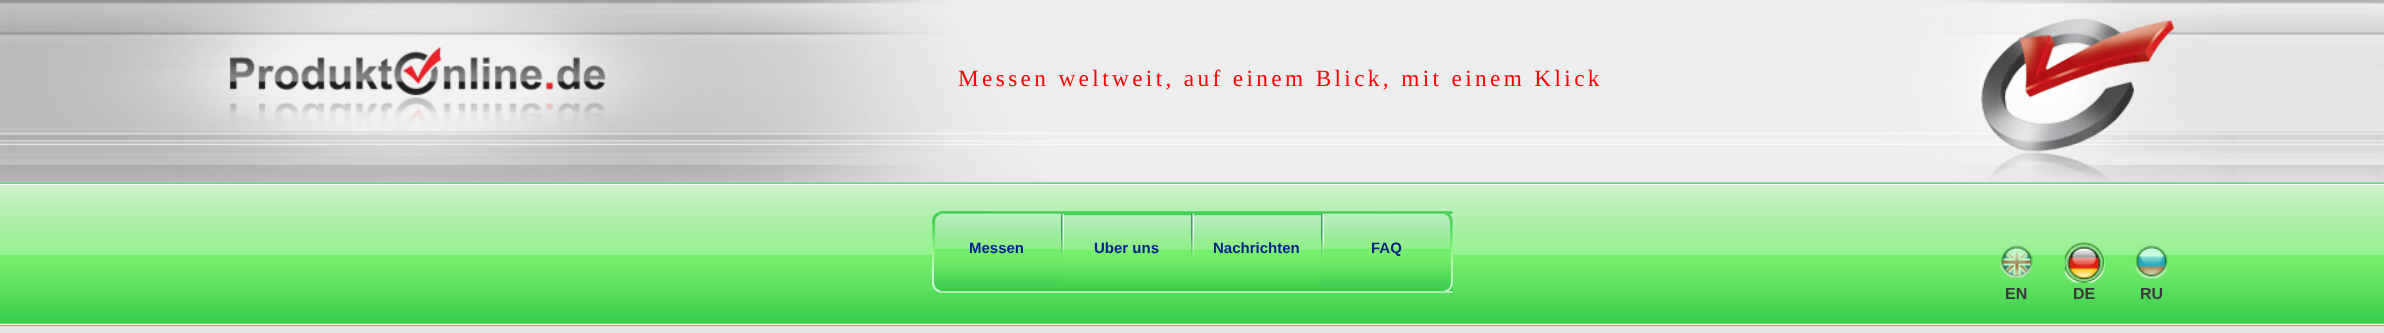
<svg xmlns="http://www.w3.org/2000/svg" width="2384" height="333">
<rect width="100%" height="100%" fill="#e7e7e7"/>
<rect x="1050" width="835" height="183" fill="#ededed"/>
<image x="1050" y="132" width="835" height="13" href="media/1.png"/>
<rect y="182" width="1050" height="1" fill="#ededed"/>
<image x="0" y="0" width="1050" height="183" href="media/2.png"/>
<text x="958" y="86" style="font-family:Liberation Serif;font-size:23.3px;letter-spacing:3.35px;fill:#f00">Messen weltweit, auf einem Blick, mit einem Klick</text>
<rect x="1885" y="182" width="499" height="1" fill="#ededed"/>
<image x="1885" y="0" width="499" height="183" href="media/3.png"/>
<image x="0" y="182" width="2384" height="145" href="media/4.png"/>
<image x="932" y="211" width="521" height="82" href="media/5.png"/>
<image x="932" y="213" width="130" height="79" href="media/6.png"/>
<text x="969" y="253" style="font-family:Liberation Sans;font-size:15px;font-weight:bold;fill:#011e88">Messen</text>
<image x="1061" y="213" width="131" height="79" href="media/7.png"/>
<text x="1094" y="253" style="font-family:Liberation Sans;font-size:15px;font-weight:bold;fill:#011e88">Uber uns</text>
<image x="1191" y="213" width="131" height="79" href="media/8.png"/>
<text x="1213" y="253" style="font-family:Liberation Sans;font-size:15px;font-weight:bold;fill:#011e88">Nachrichten</text>
<image x="1321" y="213" width="132" height="79" href="media/9.png"/>
<text x="1371" y="253" style="font-family:Liberation Sans;font-size:15px;font-weight:bold;fill:#011e88">FAQ</text>
<image x="2000" y="245" width="33" height="33" href="media/10.png"/>
<text x="2005" y="299" style="font-family:Liberation Sans;font-size:16px;font-weight:bold;fill:#393939">EN</text>
<image x="2064" y="242" width="41" height="41" href="media/11.png"/>
<text x="2073" y="299" style="font-family:Liberation Sans;font-size:16px;font-weight:bold;fill:#393939">DE</text>
<image x="2135" y="245" width="33" height="34" href="media/12.png"/>
<text x="2140" y="299" style="font-family:Liberation Sans;font-size:16px;font-weight:bold;fill:#393939">RU</text>
</svg>
